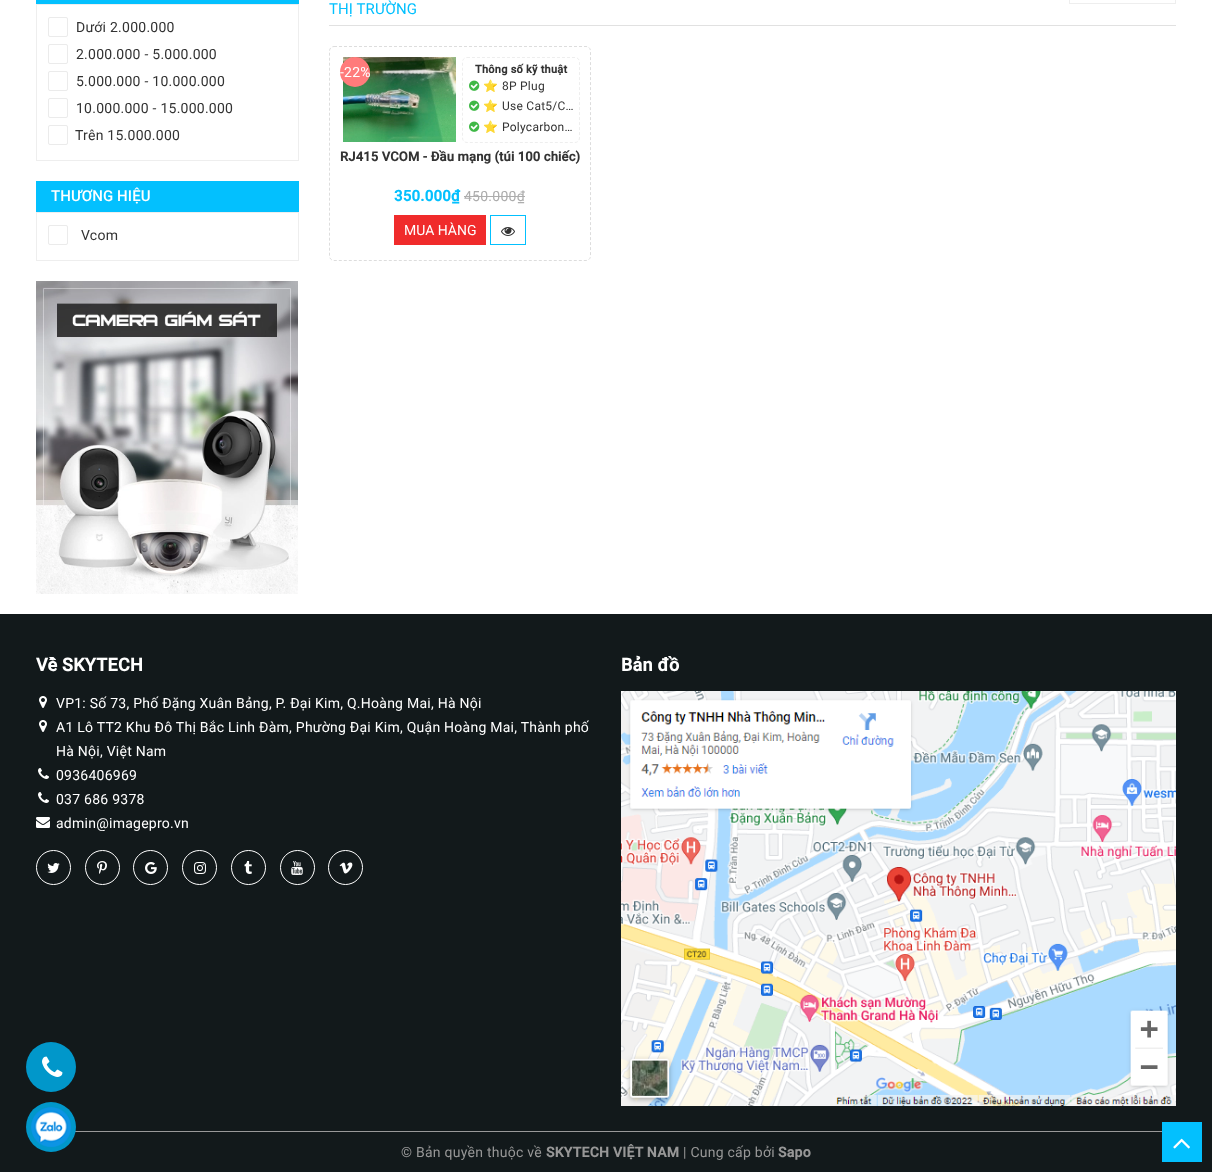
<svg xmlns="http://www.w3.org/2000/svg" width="1212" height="1172">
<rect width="100%" height="100%" fill="#fff"/>
<rect x="36" width="263" height="4" fill="#03c0fe"/>
<rect x="36.5" y="4.5" width="262" height="156" fill="none" stroke="#eee"/>
<rect x="48.5" y="17.5" width="19" height="19" rx="1.5" fill="none" stroke="#ebebeb"/>
<text x="76" y="32" style="font-family:Roboto;font-size:14px;letter-spacing:0.25px;fill:#333">Dưới 2.000.000</text>
<rect x="48.5" y="44.5" width="19" height="19" rx="1.5" fill="none" stroke="#ebebeb"/>
<text x="76" y="59" style="font-family:Roboto;font-size:14px;letter-spacing:0.25px;fill:#333">2.000.000 - 5.000.000</text>
<rect x="48.5" y="71.5" width="19" height="19" rx="1.5" fill="none" stroke="#ebebeb"/>
<text x="76" y="86" style="font-family:Roboto;font-size:14px;letter-spacing:0.25px;fill:#333">5.000.000 - 10.000.000</text>
<rect x="48.5" y="98.5" width="19" height="19" rx="1.5" fill="none" stroke="#ebebeb"/>
<text x="76" y="113" style="font-family:Roboto;font-size:14px;letter-spacing:0.25px;fill:#333">10.000.000 - 15.000.000</text>
<rect x="48.5" y="125.5" width="19" height="19" rx="1.5" fill="none" stroke="#ebebeb"/>
<text x="75" y="140" style="font-family:Roboto;font-size:14px;letter-spacing:0.25px;fill:#333">Trên 15.000.000</text>
<rect x="36" y="181" width="263" height="31" fill="#03c0fe"/>
<text x="51" y="201" style="font-family:Roboto;font-size:15px;font-weight:500;letter-spacing:0.1px;fill:#fff">THƯƠNG HIỆU</text>
<rect x="36.5" y="212.5" width="262" height="48" fill="none" stroke="#eee"/>
<rect x="48.5" y="225.5" width="19" height="19" rx="1.5" fill="none" stroke="#ebebeb"/>
<text x="81" y="240" style="font-family:Roboto;font-size:14px;letter-spacing:0.25px;fill:#333">Vcom</text>
<image x="36" y="281" width="262" height="313" href="media/1.png"/>
<rect x="329" y="25" width="847" height="1" fill="#e1e1e1"/>
<text x="329" y="14" style="font-family:Roboto;font-size:15px;letter-spacing:0.1px;fill:#03c0fe">THỊ TRƯỜNG</text>
<rect x="1069.5" y="-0.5" width="106" height="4" fill="none" stroke="#eee"/>
<path d="M334 46.5h252c2.5 0 4.5 2 4.5 4.5v205c0 2.5-2 4.5-4.5 4.5h-252c-2.5 0-4.5-2-4.5-4.5v-205c0-2.5 2-4.5 4.5-4.5z" fill="none" stroke="#ddd" stroke-dasharray="3 2"/>
<image x="343" y="57" width="113" height="85" href="media/2.png"/>
<circle cx="355" cy="72" r="15" fill="#ff7b7b"/>
<text x="340" y="77" style="font-family:Roboto;font-size:14px;letter-spacing:0.25px;fill:#fff">-22%</text>
<path d="M467 57.5h108c2.5 0 4.5 2 4.5 4.5v76c0 2.5-2 4.5-4.5 4.5h-108c-2.5 0-4.5-2-4.5-4.5v-76c0-2.5 2-4.5 4.5-4.5z" fill="none" stroke="#eee" stroke-dasharray="3 2"/>
<text x="475" y="73" style="font-family:Roboto;font-size:11px;font-weight:bold;letter-spacing:0.25px;fill:#333">Thông số kỹ thuật</text>
<image x="469" y="80" width="11" height="11" href="media/3.png"/>
<text x="483" y="90" style="font-family:Noto Color Emoji;font-size:12px;letter-spacing:0.25px;fill:#333">⭐</text>
<text x="502" y="90" style="font-family:Roboto;font-size:12px;letter-spacing:0.25px;fill:#333">8P Plug</text>
<image x="469" y="100" width="11" height="11" href="media/3.png"/>
<text x="483" y="110" style="font-family:Noto Color Emoji;font-size:12px;letter-spacing:0.25px;fill:#333">⭐</text>
<text x="502" y="110" style="font-family:Roboto;font-size:12px;letter-spacing:0.25px;fill:#333">Use Cat5/C…</text>
<image x="469" y="121" width="11" height="11" href="media/3.png"/>
<text x="483" y="131" style="font-family:Noto Color Emoji;font-size:12px;letter-spacing:0.25px;fill:#333">⭐</text>
<text x="502" y="131" style="font-family:Roboto;font-size:12px;letter-spacing:0.25px;fill:#333">Polycarbon…</text>
<text x="340" y="161" style="font-family:Roboto;font-size:13px;font-weight:bold;letter-spacing:0.15px;fill:#333">RJ415 VCOM - Đầu mạng (túi 100 chiếc)</text>
<text x="394" y="201" style="font-family:Roboto;font-size:15px;font-weight:bold;letter-spacing:0.25px;fill:#03c0fe">350.000₫</text>
<text x="464" y="201" style="font-family:Roboto;font-size:14px;letter-spacing:0.25px;fill:#adadad">450.000₫</text>
<rect x="464" y="196" width="61" height="1" fill="#adadad"/>
<rect x="394" y="215" width="92" height="30" fill="#f02b2b"/>
<text x="404" y="235" style="font-family:Roboto;font-size:14px;fill:#fff">MUA HÀNG</text>
<rect x="490.5" y="215.5" width="35" height="29" fill="none" stroke="#03c0fe"/>
<image x="501" y="227" width="14" height="9" href="media/4.png"/>
<rect y="614" width="1212" height="558" fill="#12191b"/>
<text x="36" y="671" style="font-family:Roboto;font-size:18px;font-weight:bold;letter-spacing:0.25px;fill:#fff">Về SKYTECH</text>
<image x="39" y="696" width="8" height="12" href="media/5.png"/>
<text x="56" y="708" style="font-family:Roboto;font-size:14px;letter-spacing:0.25px;fill:#fff">VP1: Số 73, Phố Đặng Xuân Bảng, P. Đại Kim, Q.Hoàng Mai, Hà Nội</text>
<image x="39" y="720" width="8" height="12" href="media/5.png"/>
<text x="56" y="732" style="font-family:Roboto;font-size:14px;letter-spacing:0.25px;fill:#fff">A1 Lô TT2 Khu Đô Thị Bắc Linh Đàm, Phường Đại Kim, Quận Hoàng Mai, Thành phố</text>
<text x="56" y="756" style="font-family:Roboto;font-size:14px;letter-spacing:0.25px;fill:#fff">Hà Nội, Việt Nam</text>
<image x="38" y="768" width="11" height="11" href="media/6.png"/>
<text x="56" y="780" style="font-family:Roboto;font-size:14px;letter-spacing:0.25px;fill:#fff">0936406969</text>
<image x="38" y="792" width="11" height="11" href="media/6.png"/>
<text x="56" y="804" style="font-family:Roboto;font-size:14px;letter-spacing:0.25px;fill:#fff">037 686 9378</text>
<image x="36" y="817" width="14" height="11" href="media/7.png"/>
<text x="56" y="828" style="font-family:Roboto;font-size:14px;letter-spacing:0.25px;fill:#fff">admin@imagepro.vn</text>
<circle cx="53.5" cy="867.5" r="17" fill="none" stroke="#fff"/>
<image x="47" y="863" width="13" height="10" href="media/8.png"/>
<circle cx="102.5" cy="867.5" r="17" fill="none" stroke="#fff"/>
<image x="97" y="861" width="10" height="13" href="media/9.png"/>
<circle cx="150.5" cy="867.5" r="17" fill="none" stroke="#fff"/>
<image x="145" y="862" width="12" height="12" href="media/10.png"/>
<circle cx="199.5" cy="867.5" r="17" fill="none" stroke="#fff"/>
<image x="194" y="862" width="12" height="12" href="media/11.png"/>
<circle cx="248.5" cy="867.5" r="17" fill="none" stroke="#fff"/>
<image x="244" y="861" width="8" height="13" href="media/12.png"/>
<circle cx="297.5" cy="867.5" r="17" fill="none" stroke="#fff"/>
<image x="291" y="861" width="12" height="14" href="media/13.png"/>
<circle cx="345.5" cy="867.5" r="17" fill="none" stroke="#fff"/>
<image x="339" y="862" width="14" height="12" href="media/14.png"/>
<text x="621" y="671" style="font-family:Roboto;font-size:18px;font-weight:bold;letter-spacing:0.25px;fill:#fff">Bản đồ</text>
<image x="621" y="691" width="555" height="415" href="media/15.png"/>
<rect x="75" y="1131" width="1087" height="1" fill="#999"/>
<text x="401" y="1157" style="font-family:Roboto;font-size:14px;letter-spacing:0.25px;fill:#979797">© Bản quyền thuộc về</text>
<text x="546" y="1157" style="font-family:Roboto;font-size:14px;font-weight:bold;letter-spacing:0.25px;fill:#979797">SKYTECH VIỆT NAM</text>
<text x="683" y="1157" style="font-family:Roboto;font-size:14px;letter-spacing:0.25px;fill:#979797">| Cung cấp bởi</text>
<text x="778" y="1157" style="font-family:Roboto;font-size:14px;font-weight:bold;letter-spacing:0.25px;fill:#979797">Sapo</text>
<rect x="1162" y="1122" width="40" height="40" fill="#03c0fe"/>
<image x="1173" y="1138" width="17" height="11" href="media/16.png"/>
<circle cx="51" cy="1067" r="25" fill="#0197ca"/>
<image x="42" y="1056" width="21" height="21" href="media/17.png"/>
<circle cx="51" cy="1127" r="25" fill="#0197ca"/>
<image x="31" y="1107" width="40" height="40" href="media/18.png"/>
</svg>
